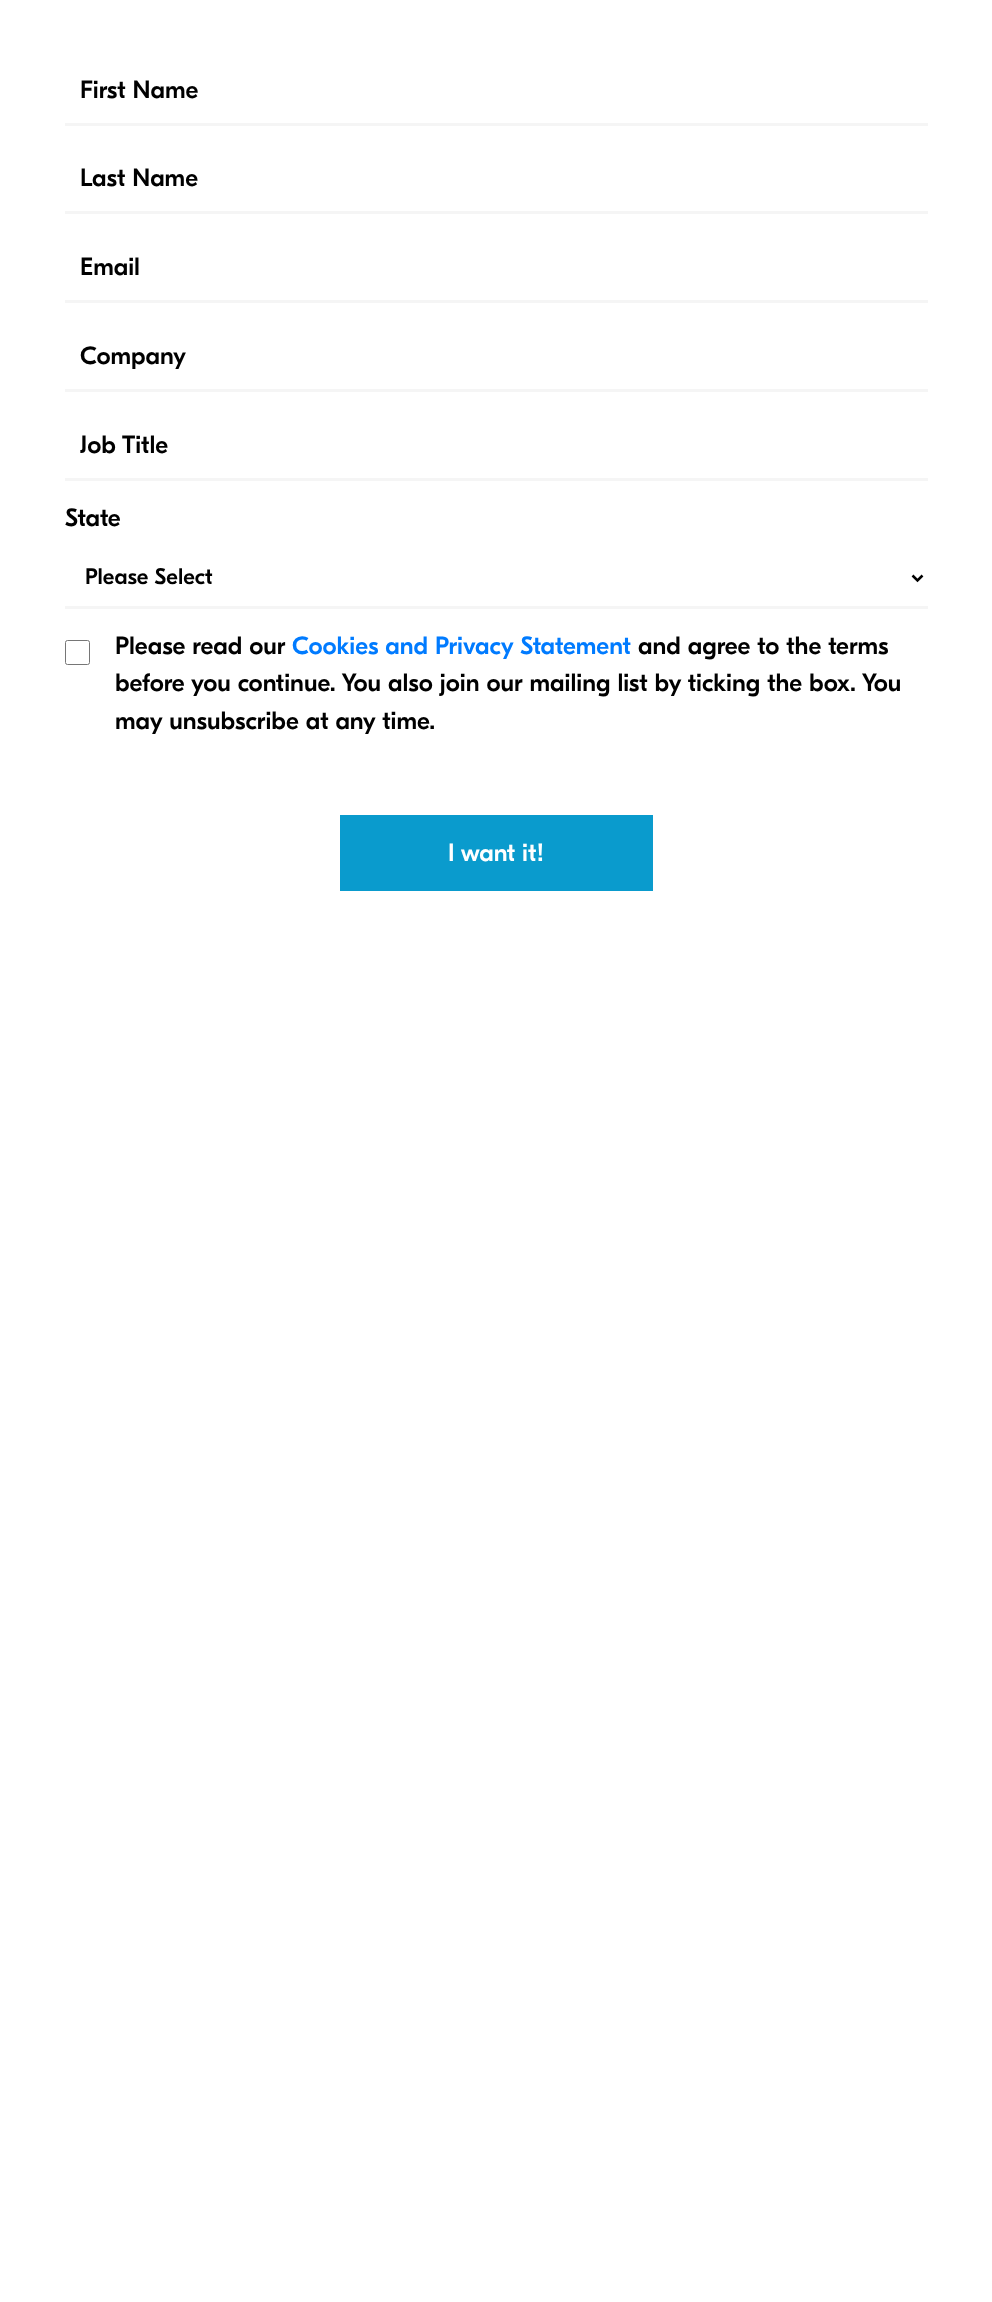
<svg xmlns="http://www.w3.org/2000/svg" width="992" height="2302">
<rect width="100%" height="100%" fill="#fff"/>
<text x="80" y="98" style="font-family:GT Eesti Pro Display;font-size:25px;font-weight:500;fill:#000">First Name</text>
<rect x="65" y="123" width="863" height="3" fill="#f5f5f5"/>
<text x="80" y="186" style="font-family:GT Eesti Pro Display;font-size:25px;font-weight:500;fill:#000">Last Name</text>
<rect x="65" y="211" width="863" height="3" fill="#f5f5f5"/>
<text x="80" y="275" style="font-family:GT Eesti Pro Display;font-size:25px;font-weight:500;fill:#000">Email</text>
<rect x="65" y="300" width="863" height="3" fill="#f5f5f5"/>
<text x="80" y="364" style="font-family:GT Eesti Pro Display;font-size:25px;font-weight:500;fill:#000">Company</text>
<rect x="65" y="389" width="863" height="3" fill="#f5f5f5"/>
<text x="80" y="453" style="font-family:GT Eesti Pro Display;font-size:25px;font-weight:500;fill:#000">Job Title</text>
<rect x="65" y="478" width="863" height="3" fill="#f5f5f5"/>
<text x="65" y="526" style="font-family:GT Eesti Pro Display;font-size:25px;font-weight:500;fill:#000">State</text>
<rect x="65" y="606" width="863" height="3" fill="#f5f5f5"/>
<path d="M912.5 575.5l5 5l5-5" fill="none" stroke="#000" stroke-width="2.5"/>
<text x="85" y="584" style="font-family:GT Eesti Pro Display;font-size:22.5px;font-weight:500;fill:#000">Please Select</text>
<rect x="65.5" y="640.5" width="24" height="24" rx="2" fill="none" stroke="#767676"/>
<text x="115" y="654" style="font-family:GT Eesti Pro Display;font-size:25px;font-weight:500;fill:#000">Please read our</text>
<text x="292" y="654" style="font-family:GT Eesti Pro Display;font-size:25px;font-weight:500;fill:#007bff">Cookies and Privacy Statement</text>
<text x="638" y="654" style="font-family:GT Eesti Pro Display;font-size:25px;font-weight:500;fill:#000">and agree to the terms</text>
<text x="115" y="691" style="font-family:GT Eesti Pro Display;font-size:25px;font-weight:500;fill:#000">before you continue. You also join our mailing list by ticking the box. You</text>
<text x="115" y="729" style="font-family:GT Eesti Pro Display;font-size:25px;font-weight:500;fill:#000">may unsubscribe at any time.</text>
<rect x="340" y="815" width="313" height="76" fill="#0a9bcd"/>
<text x="448" y="861" style="font-family:GT Eesti Pro Display;font-size:25px;font-weight:500;fill:#fff">I want it!</text>
</svg>
